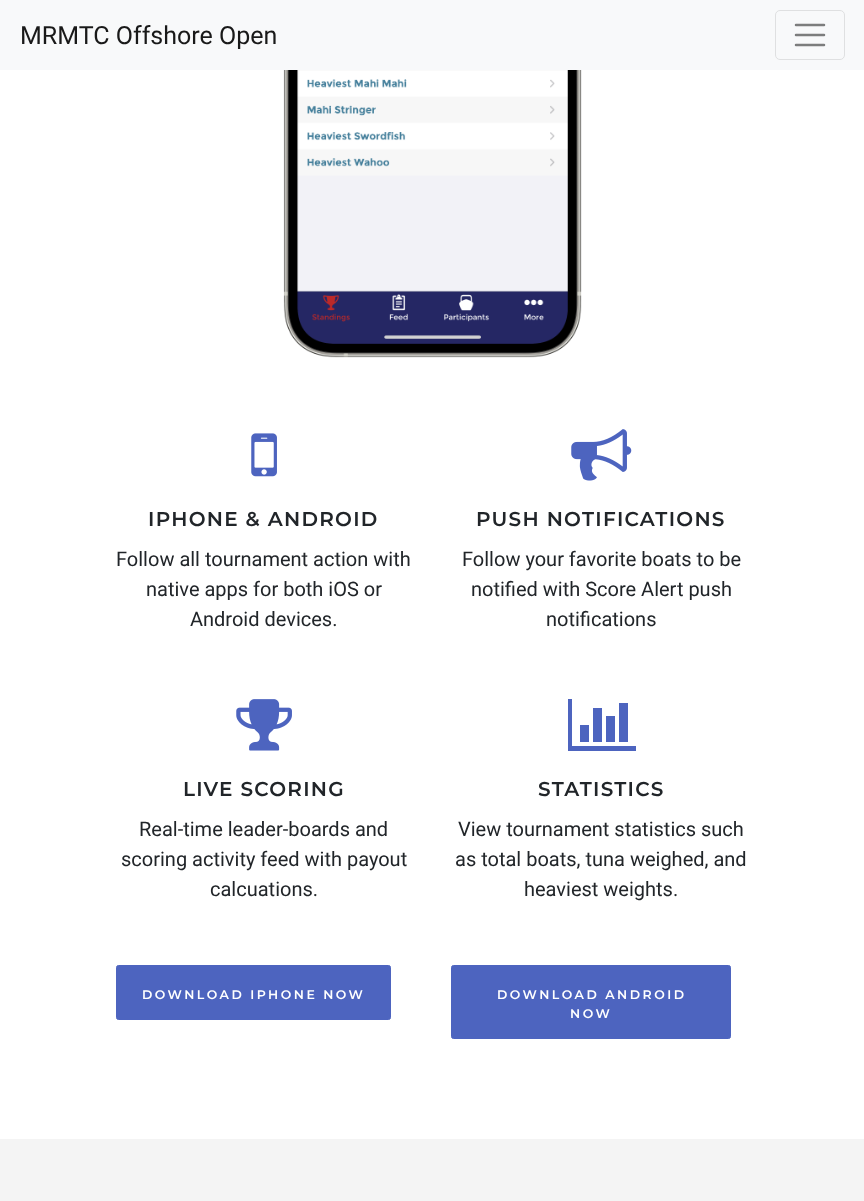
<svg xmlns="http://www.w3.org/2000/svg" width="864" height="1201">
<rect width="100%" height="100%" fill="#fff"/>
<rect width="864" height="70" fill="#f8f9fa"/>
<text x="20" y="44" style="font-family:Roboto;font-size:25px;fill:#191919">MRMTC Offshore Open</text>
<rect x="775.5" y="10.5" width="69" height="49" rx="4.5" fill="none" stroke="#dfe0e1"/>
<path d="M796 25h28m-28 10h28m-28 10h28" fill="none" stroke="#7c7d7d" stroke-width="2.5" stroke-linecap="round"/>
<image x="283" y="70" width="299" height="288" href="media/1.png"/>
<image x="251" y="433" width="26" height="44" href="media/2.png"/>
<text x="148" y="526" style="font-family:Montserrat;font-size:20px;font-weight:600;letter-spacing:1.25px;fill:#212529">IPHONE &amp; ANDROID</text>
<text x="116" y="566" style="font-family:Roboto;font-size:20px;fill:#212529">Follow all tournament action with</text>
<text x="146" y="596" style="font-family:Roboto;font-size:20px;fill:#212529">native apps for both iOS or</text>
<text x="190" y="626" style="font-family:Roboto;font-size:20px;fill:#212529">Android devices.</text>
<image x="571" y="429" width="61" height="52" href="media/3.png"/>
<text x="476" y="526" style="font-family:Montserrat;font-size:20px;font-weight:600;letter-spacing:1.25px;fill:#212529">PUSH NOTIFICATIONS</text>
<text x="462" y="566" style="font-family:Roboto;font-size:20px;fill:#212529">Follow your favorite boats to be</text>
<text x="471" y="596" style="font-family:Roboto;font-size:20px;fill:#212529">notified with Score Alert push</text>
<text x="546" y="626" style="font-family:Roboto;font-size:20px;fill:#212529">notifications</text>
<image x="236" y="699" width="56" height="52" href="media/4.png"/>
<text x="183" y="796" style="font-family:Montserrat;font-size:20px;font-weight:600;letter-spacing:1.25px;fill:#212529">LIVE SCORING</text>
<text x="139" y="836" style="font-family:Roboto;font-size:20px;fill:#212529">Real-time leader-boards and</text>
<text x="121" y="866" style="font-family:Roboto;font-size:20px;fill:#212529">scoring activity feed with payout</text>
<text x="210" y="896" style="font-family:Roboto;font-size:20px;fill:#212529">calcuations.</text>
<path d="M589 725v17h-9v-17zm13-17v34h-9v-34zm34 38v5h-68v-52h4v47zm-21-30v26h-9v-26zm13-13v39h-9v-39z" fill="#4d64bf"/>
<text x="538" y="796" style="font-family:Montserrat;font-size:20px;font-weight:600;letter-spacing:1.25px;fill:#212529">STATISTICS</text>
<text x="458" y="836" style="font-family:Roboto;font-size:20px;fill:#212529">View tournament statistics such</text>
<text x="455" y="866" style="font-family:Roboto;font-size:20px;fill:#212529">as total boats, tuna weighed, and</text>
<text x="524" y="896" style="font-family:Roboto;font-size:20px;fill:#212529">heaviest weights.</text>
<rect x="116.5" y="965.5" width="274" height="54" rx="2" fill="#4d64bf" stroke="#4d64bf"/>
<text x="142" y="999" style="font-family:Montserrat;font-size:12.5px;font-weight:600;letter-spacing:2.5px;fill:#fff">DOWNLOAD IPHONE NOW</text>
<rect x="451.5" y="965.5" width="279" height="73" rx="2" fill="#4d64bf" stroke="#4d64bf"/>
<text x="497" y="999" style="font-family:Montserrat;font-size:12.5px;font-weight:600;letter-spacing:2.5px;fill:#fff">DOWNLOAD ANDROID</text>
<text x="570" y="1018" style="font-family:Montserrat;font-size:12.5px;font-weight:600;letter-spacing:2.5px;fill:#fff">NOW</text>
<rect y="1139" width="864" height="62" fill="#f4f4f4"/>
</svg>
